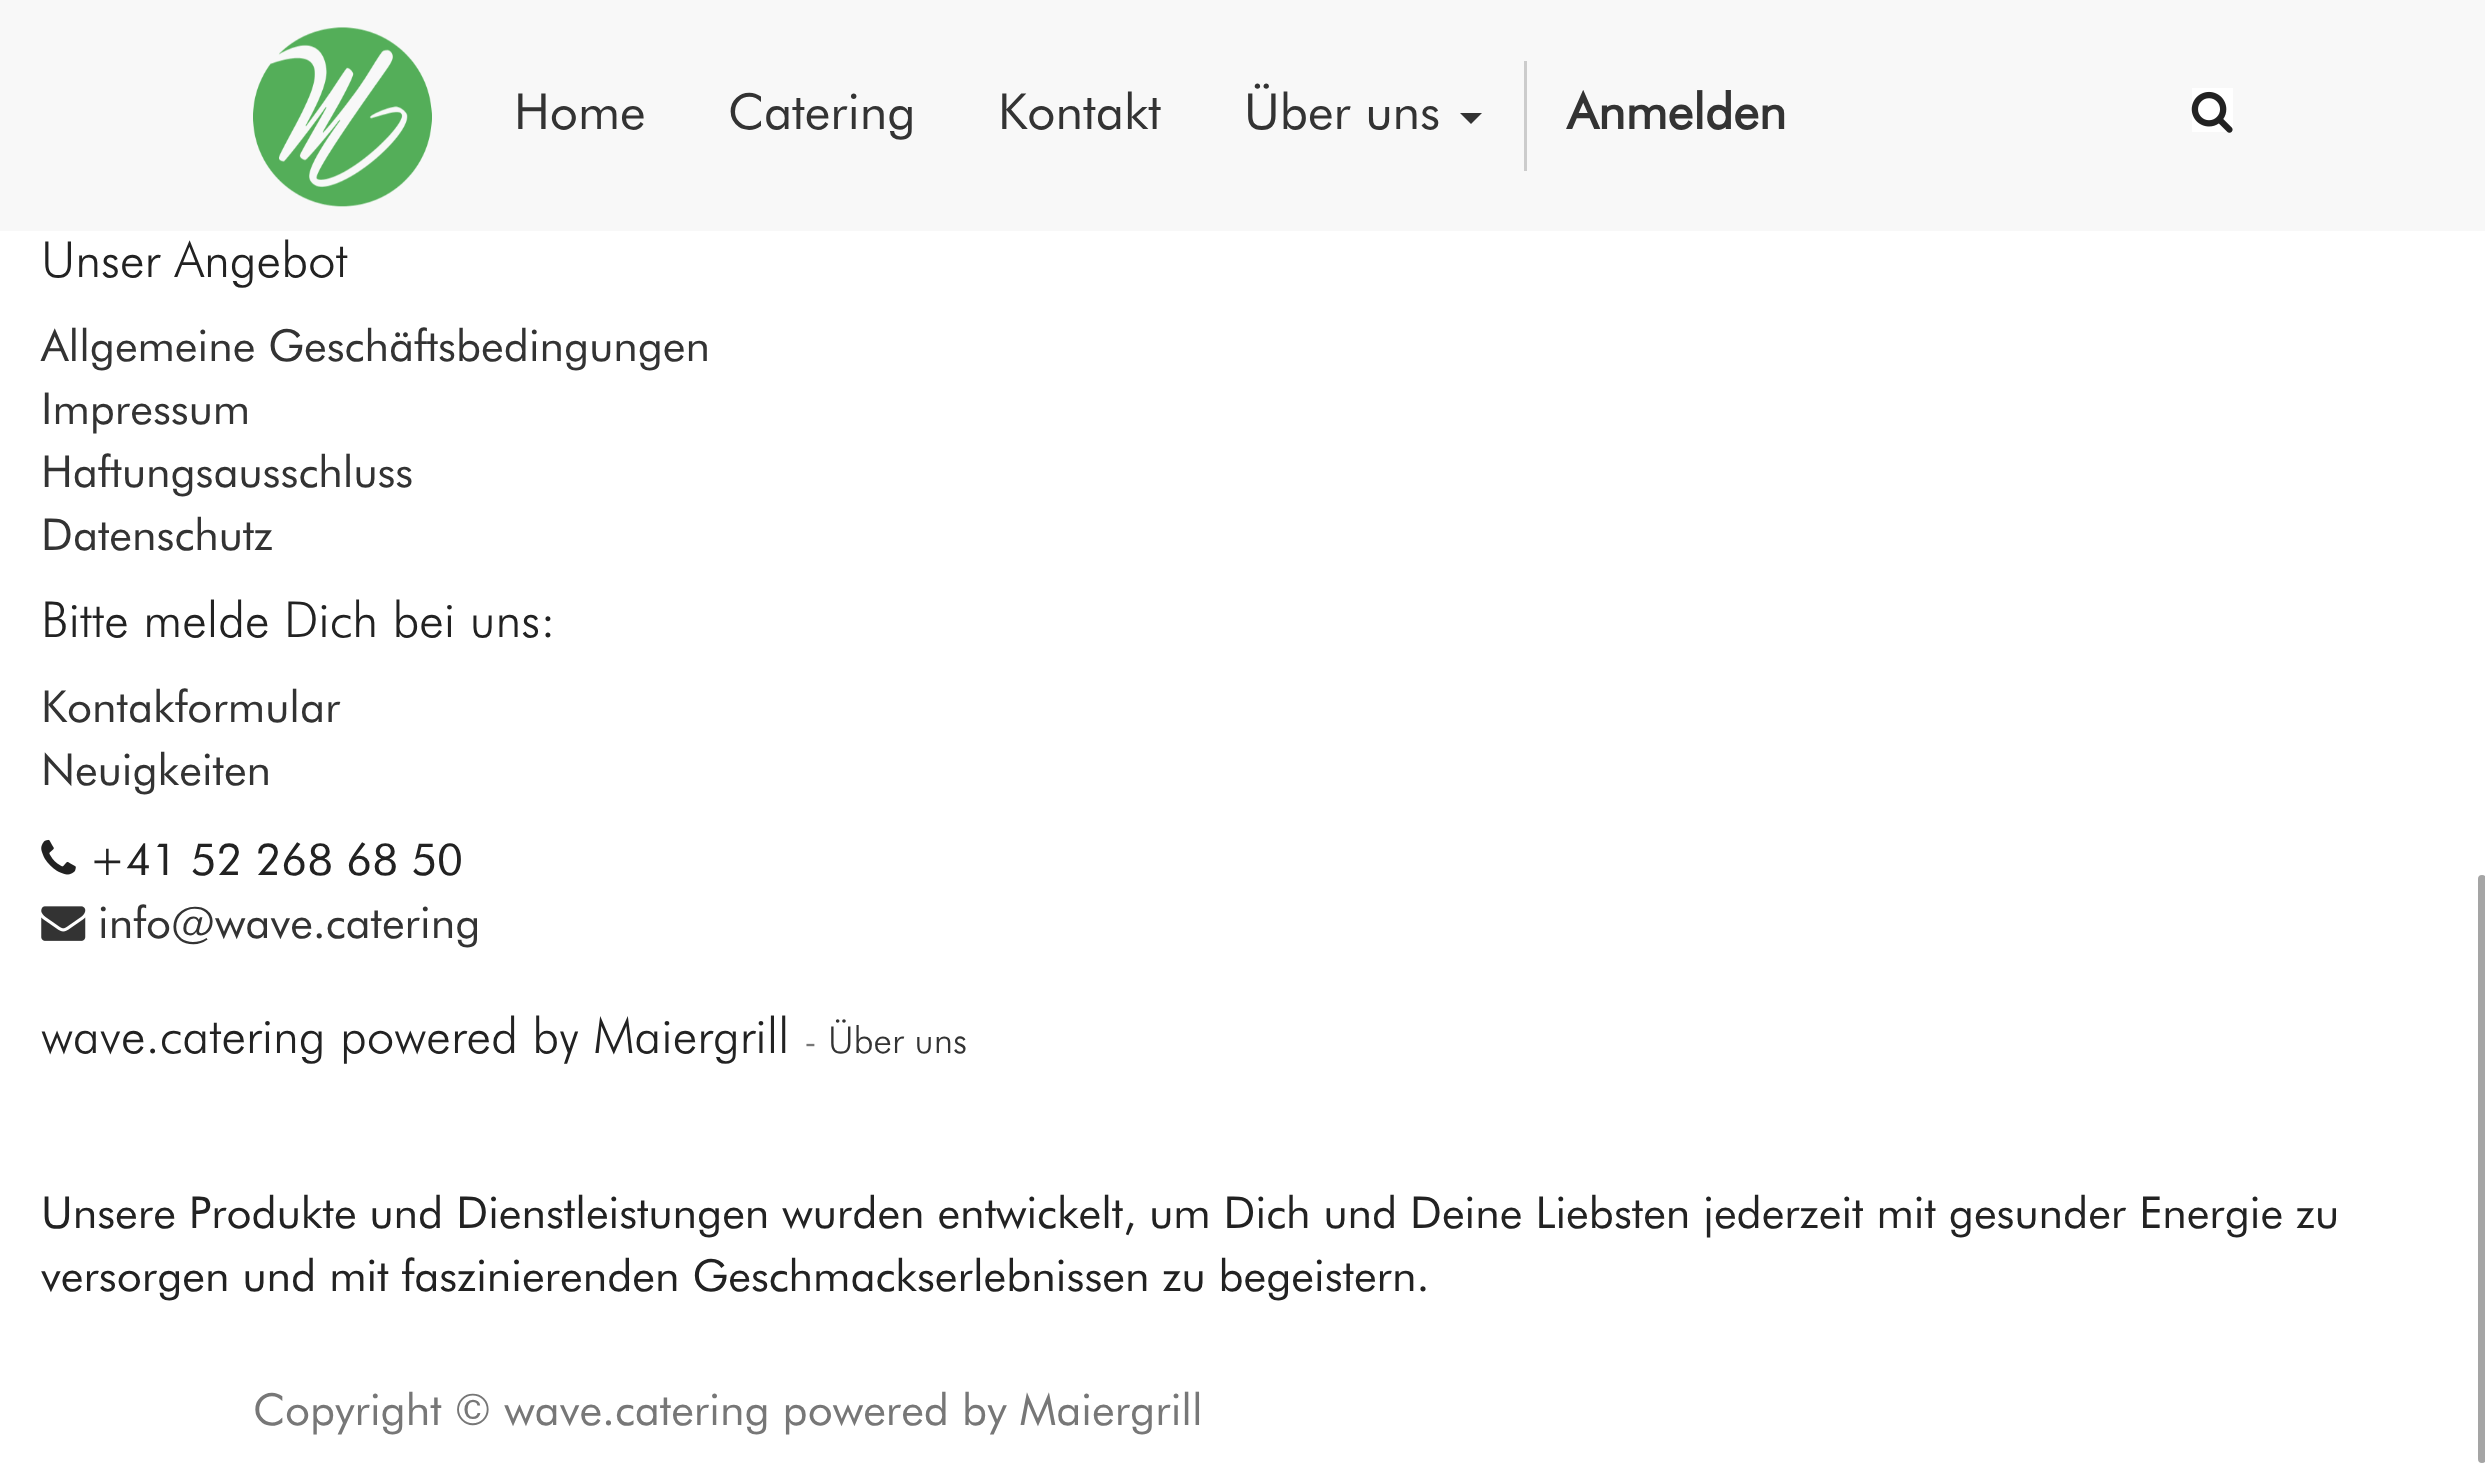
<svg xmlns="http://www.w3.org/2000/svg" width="2485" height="1466">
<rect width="100%" height="100%" fill="#fff"/>
<rect width="2485" height="231" fill="#f8f8f8"/>
<image x="253" y="27" width="179" height="180" href="media/1.png"/>
<text x="514" y="129" style="font-family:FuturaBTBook;font-size:49.5px;fill:#333">Home</text>
<text x="728" y="129" style="font-family:FuturaBTBook;font-size:49.5px;fill:#333">Catering</text>
<text x="998" y="129" style="font-family:FuturaBTBook;font-size:49.5px;fill:#333">Kontakt</text>
<text x="1244" y="129" style="font-family:FuturaBTBook;font-size:49.5px;fill:#333">Über uns</text>
<path d="M1460 113h22l-11 11z" fill="#333"/>
<rect x="1524" y="61" width="3" height="110" fill="#ccc"/>
<text x="1567" y="129" style="font-family:FuturaBTBook;font-size:49.5px;font-weight:bold;fill:#333">Anmelden</text>
<rect x="2192" y="88" width="41" height="44" fill="#fff"/>
<image x="2191" y="91" width="42" height="42" href="media/2.png"/>
<text x="41" y="277" style="font-family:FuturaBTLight;font-size:49.5px;font-weight:300;fill:#222">Unser Angebot</text>
<text x="41" y="361" style="font-family:FuturaBTBook;font-size:44px;fill:#333">Allgemeine Geschäftsbedingungen</text>
<text x="41" y="424" style="font-family:FuturaBTBook;font-size:44px;fill:#333">Impressum</text>
<text x="41" y="487" style="font-family:FuturaBTBook;font-size:44px;fill:#333">Haftungsausschluss</text>
<text x="41" y="550" style="font-family:FuturaBTBook;font-size:44px;fill:#333">Datenschutz</text>
<text x="41" y="637" style="font-family:FuturaBTLight;font-size:49.5px;font-weight:300;fill:#222">Bitte melde Dich bei uns:</text>
<text x="41" y="722" style="font-family:FuturaBTBook;font-size:44px;fill:#333">Kontakformular</text>
<text x="41" y="785" style="font-family:FuturaBTBook;font-size:44px;fill:#333">Neuigkeiten</text>
<image x="41" y="839" width="35" height="36" href="media/3.png"/>
<text x="89" y="875" style="font-family:FuturaBTBook;font-size:44px;fill:#222">+41 52 268 68 50</text>
<image x="41" y="906" width="45" height="35" href="media/4.png"/>
<text x="98" y="938" style="font-family:FuturaBTBook;font-size:44px;fill:#333">info@wave.catering</text>
<text x="41" y="1053" style="font-family:FuturaBTLight;font-size:49.5px;font-weight:300;fill:#222">wave.catering powered by Maiergrill</text>
<text x="804" y="1053" style="font-family:FuturaBTLight;font-size:37px;font-weight:300;fill:#777">-</text>
<text x="828" y="1053" style="font-family:FuturaBTLight;font-size:37px;font-weight:300;fill:#333">Über uns</text>
<text x="41" y="1228" style="font-family:FuturaBTBook;font-size:44px;fill:#222">Unsere Produkte und Dienstleistungen wurden entwickelt, um Dich und Deine Liebsten jederzeit mit gesunder Energie zu</text>
<text x="41" y="1291" style="font-family:FuturaBTBook;font-size:44px;fill:#222">versorgen und mit faszinierenden Geschmackserlebnissen zu begeistern.</text>
<text x="253" y="1425" style="font-family:FuturaBTBook;font-size:44px;fill:#777">Copyright © wave.catering powered by Maiergrill</text>
<rect x="2479.5" y="876.5" width="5" height="585" rx="2.5" fill="#a5a5a5" stroke="#a5a5a5" stroke-width="3"/>
</svg>
